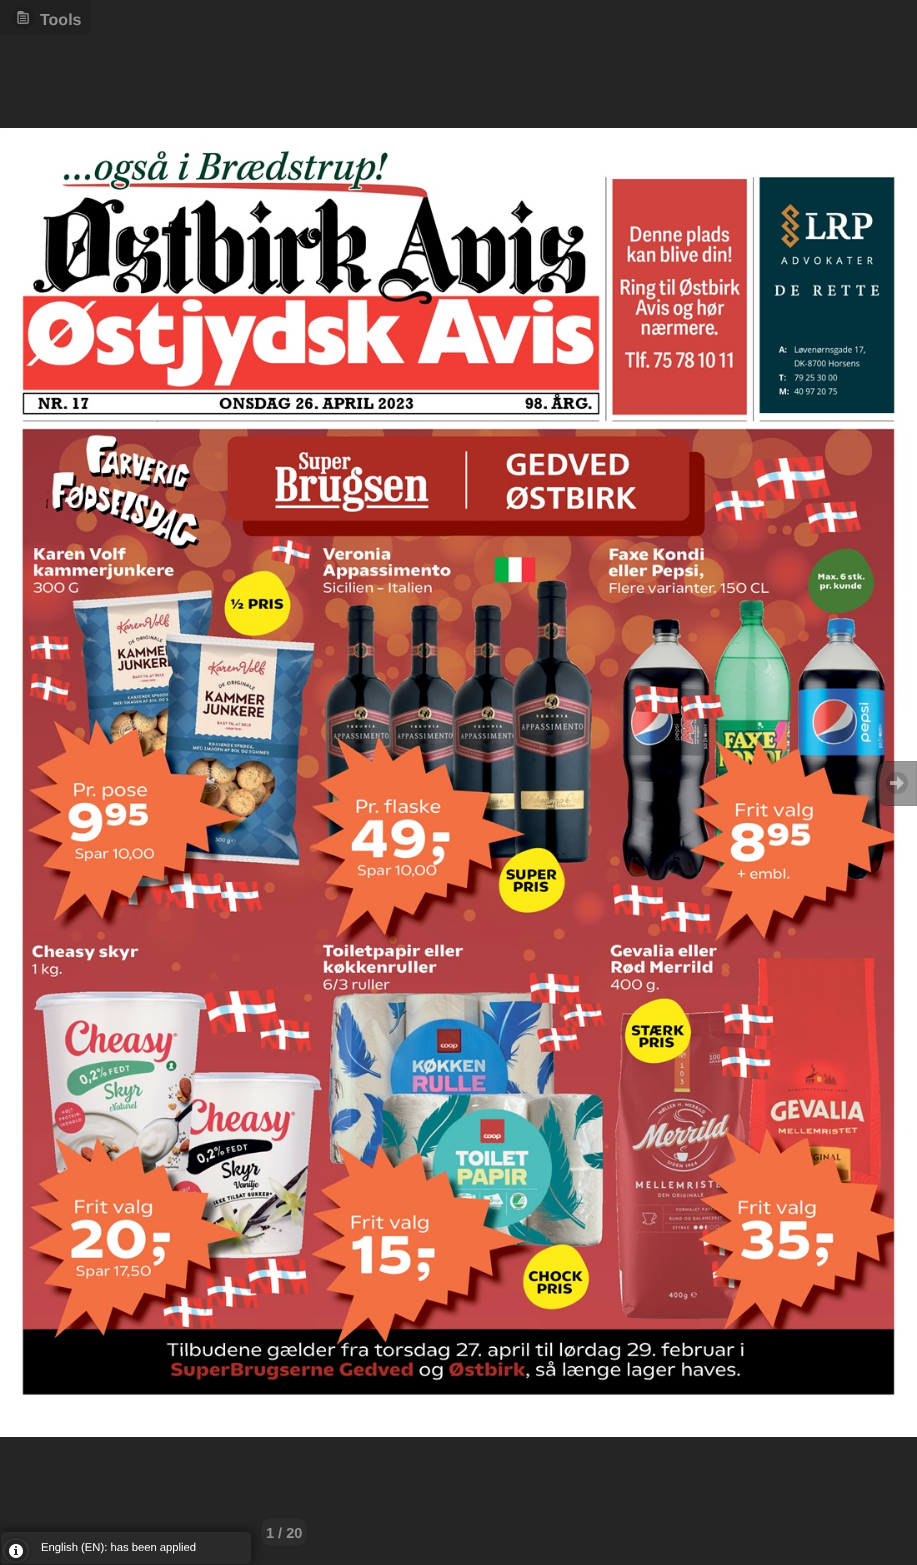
<svg xmlns="http://www.w3.org/2000/svg" width="917" height="1565">
<defs>
<clipPath id="clip1"><path d="M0 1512h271v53h-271zm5 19h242c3 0 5 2 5 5v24c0 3-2 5-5 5h-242c-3 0-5-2-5-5v-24c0-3 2-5 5-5z" clip-rule="evenodd"/></clipPath>
</defs>
<rect width="100%" height="100%" fill="#252525"/>
<path d="M0 0h91v25c0 5.5-4.5 10-10 10h-81z" fill="#212121"/>
<circle cx="23" cy="18" r="11" fill="#1d1d1d"/>
<image x="17" y="11" width="12" height="13" href="media/1.png"/>
<text x="40" y="25" style="font-family:Liberation Sans;font-size:16px;font-weight:bold;fill:#929292">Tools</text>
<image x="0" y="128" width="917" height="1309" href="media/2.png"/>
<path d="M887 762h29v43h-29c-5 0-9-4-9-9v-25c0-5 4-9 9-9z" fill="#33333380"/>
<path d="M887 761.5h29.5v44h-29.5c-5 0-9.5-4.5-9.5-9.5v-25c0-5 4.5-9.5 9.5-9.5z" fill="none" stroke="#1f1f1f80"/>
<circle cx="897" cy="783" r="11" fill="#00000026"/>
<image x="890" y="776" width="14" height="14" href="media/3.png"/>
<rect x="260.5" y="1517.5" width="47" height="29" rx="9.5" fill="#2c2c2c" stroke="#222"/>
<text x="266" y="1538" style="font-family:Liberation Sans;font-size:14.5px;font-weight:bold;fill:#929292">1 / 20</text>
<g clip-path="url(#clip1)">
<rect y="1531" width="252" height="34" rx="5" fill="#00000099" filter="blur(6px)"/>
</g>
<rect x="0.5" y="1531.5" width="251" height="33" rx="4.5" fill="#2a2a2a" stroke="#1d1d1d"/>
<rect x="1.5" y="1537.5" width="29" height="26" rx="13" fill="#333" stroke="#1f1f1f"/>
<circle cx="16" cy="1551" r="11" fill="#242424"/>
<image x="9" y="1544" width="14" height="14" href="media/4.png"/>
<text x="41" y="1551" style="font-family:Liberation Sans;font-size:11.25px;fill:#fff">English (EN): has been applied</text>
</svg>
